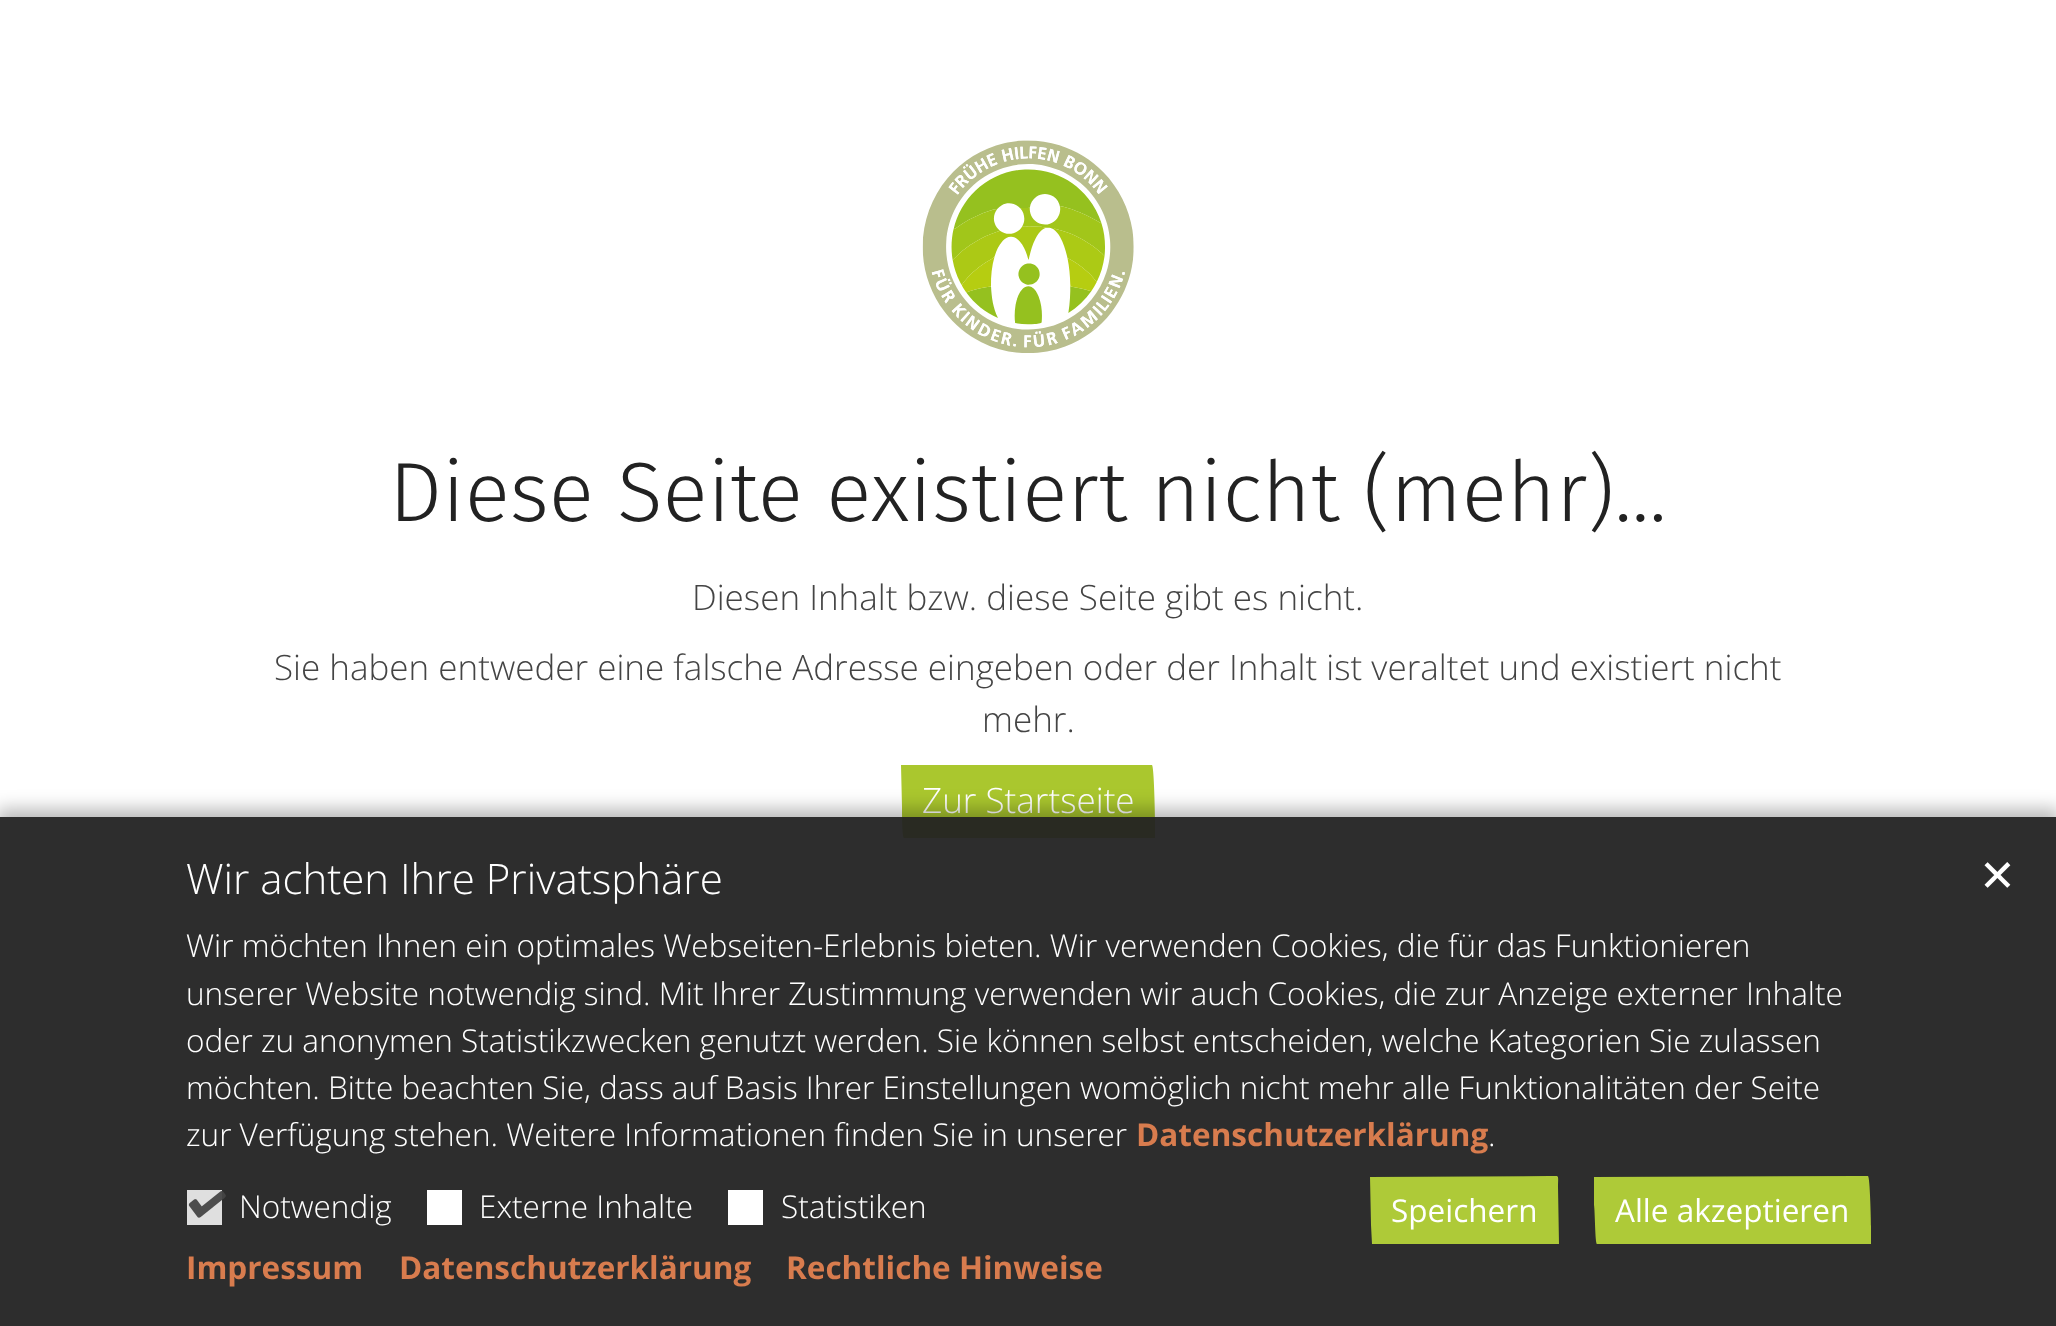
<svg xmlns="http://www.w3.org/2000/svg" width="2056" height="1326">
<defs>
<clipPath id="clip1"><path d="M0 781h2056v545h-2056zm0 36h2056v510h-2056z" clip-rule="evenodd"/></clipPath>
</defs>
<rect width="100%" height="100%" fill="#fff"/>
<image x="922" y="140" width="212" height="213" href="media/1.png"/>
<text x="389" y="521" style="font-family:Fira Sans;font-size:84px;font-weight:300;fill:#222">Diese Seite existiert nicht (mehr)...</text>
<text x="692" y="610" style="font-family:Open Sans;font-size:35px;font-weight:300;fill:#444">Diesen Inhalt bzw. diese Seite gibt es nicht.</text>
<text x="274" y="680" style="font-family:Open Sans;font-size:35px;font-weight:300;fill:#444">Sie haben entweder eine falsche Adresse eingeben oder der Inhalt ist veraltet und existiert nicht</text>
<text x="982" y="732" style="font-family:Open Sans;font-size:35px;font-weight:300;fill:#444">mehr.</text>
<path d="M1142 765h10c2 1 3 49 3 54v19h-251c-2 0-2-27-2-31l-1-42z" fill="#aac72e"/>
<text x="922" y="813" style="font-family:Open Sans;font-size:35px;font-weight:300;fill:#fff">Zur Startseite</text>
<g clip-path="url(#clip1)">
<rect x="-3" y="809" width="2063" height="516" fill="#00000047" filter="blur(9px)"/>
</g>
<rect y="817" width="2056" height="509" fill="#222222f2"/>
<text x="186" y="894" style="font-family:Open Sans;font-size:42px;font-weight:300;fill:#fff">Wir achten Ihre Privatsphäre</text>
<text x="1979" y="891" style="font-family:DejaVu Sans;font-size:44px;fill:#fff">✕</text>
<text x="186" y="957" style="font-family:Open Sans;font-size:31.5px;font-weight:300;fill:#fff">Wir möchten Ihnen ein optimales Webseiten-Erlebnis bieten. Wir verwenden Cookies, die für das Funktionieren</text>
<text x="186" y="1005" style="font-family:Open Sans;font-size:31.5px;font-weight:300;fill:#fff">unserer Website notwendig sind. Mit Ihrer Zustimmung verwenden wir auch Cookies, die zur Anzeige externer Inhalte</text>
<text x="186" y="1052" style="font-family:Open Sans;font-size:31.5px;font-weight:300;fill:#fff">oder zu anonymen Statistikzwecken genutzt werden. Sie können selbst entscheiden, welche Kategorien Sie zulassen</text>
<text x="186" y="1099" style="font-family:Open Sans;font-size:31.5px;font-weight:300;fill:#fff">möchten. Bitte beachten Sie, dass auf Basis Ihrer Einstellungen womöglich nicht mehr alle Funktionalitäten der Seite</text>
<text x="186" y="1146" style="font-family:Open Sans;font-size:31.5px;font-weight:300;fill:#fff">zur Verfügung stehen. Weitere Informationen finden Sie in unserer</text>
<text x="1136" y="1146" style="font-family:Open Sans;font-size:31.5px;font-weight:bold;fill:#d87c4e">Datenschutzerklärung</text>
<text x="1488" y="1146" style="font-family:Open Sans;font-size:31.5px;font-weight:300;fill:#fff">.</text>
<rect x="187" y="1190" width="35" height="35" fill="#dfdfdf"/>
<image x="188" y="1191" width="38" height="27" href="media/2.png"/>
<text x="239" y="1218" style="font-family:Open Sans;font-size:31.5px;font-weight:300;fill:#fff">Notwendig</text>
<rect x="427" y="1190" width="35" height="35" fill="#fff"/>
<text x="479" y="1218" style="font-family:Open Sans;font-size:31.5px;font-weight:300;fill:#fff">Externe Inhalte</text>
<rect x="728" y="1190" width="35" height="35" fill="#fff"/>
<text x="781" y="1218" style="font-family:Open Sans;font-size:31.5px;font-weight:300;fill:#fff">Statistiken</text>
<path d="M1550 1176c10 0 8-2 8 11l1 57h-187l-1-19l-1-48z" fill="#aeca38"/>
<text x="1391" y="1222" style="font-family:Open Sans;font-size:31.5px;fill:#fff">Speichern</text>
<path d="M1857 1176h11c2 1 3 45 3 50v18h-274c-2 0-2-33-3-39v-28z" fill="#aeca38"/>
<text x="1615" y="1222" style="font-family:Open Sans;font-size:31.5px;fill:#fff">Alle akzeptieren</text>
<text x="186" y="1279" style="font-family:Open Sans;font-size:31.5px;font-weight:bold;fill:#d87c4e">Impressum</text>
<text x="399" y="1279" style="font-family:Open Sans;font-size:31.5px;font-weight:bold;fill:#d87c4e">Datenschutzerklärung</text>
<text x="786" y="1279" style="font-family:Open Sans;font-size:31.5px;font-weight:bold;fill:#d87c4e">Rechtliche Hinweise</text>
</svg>
